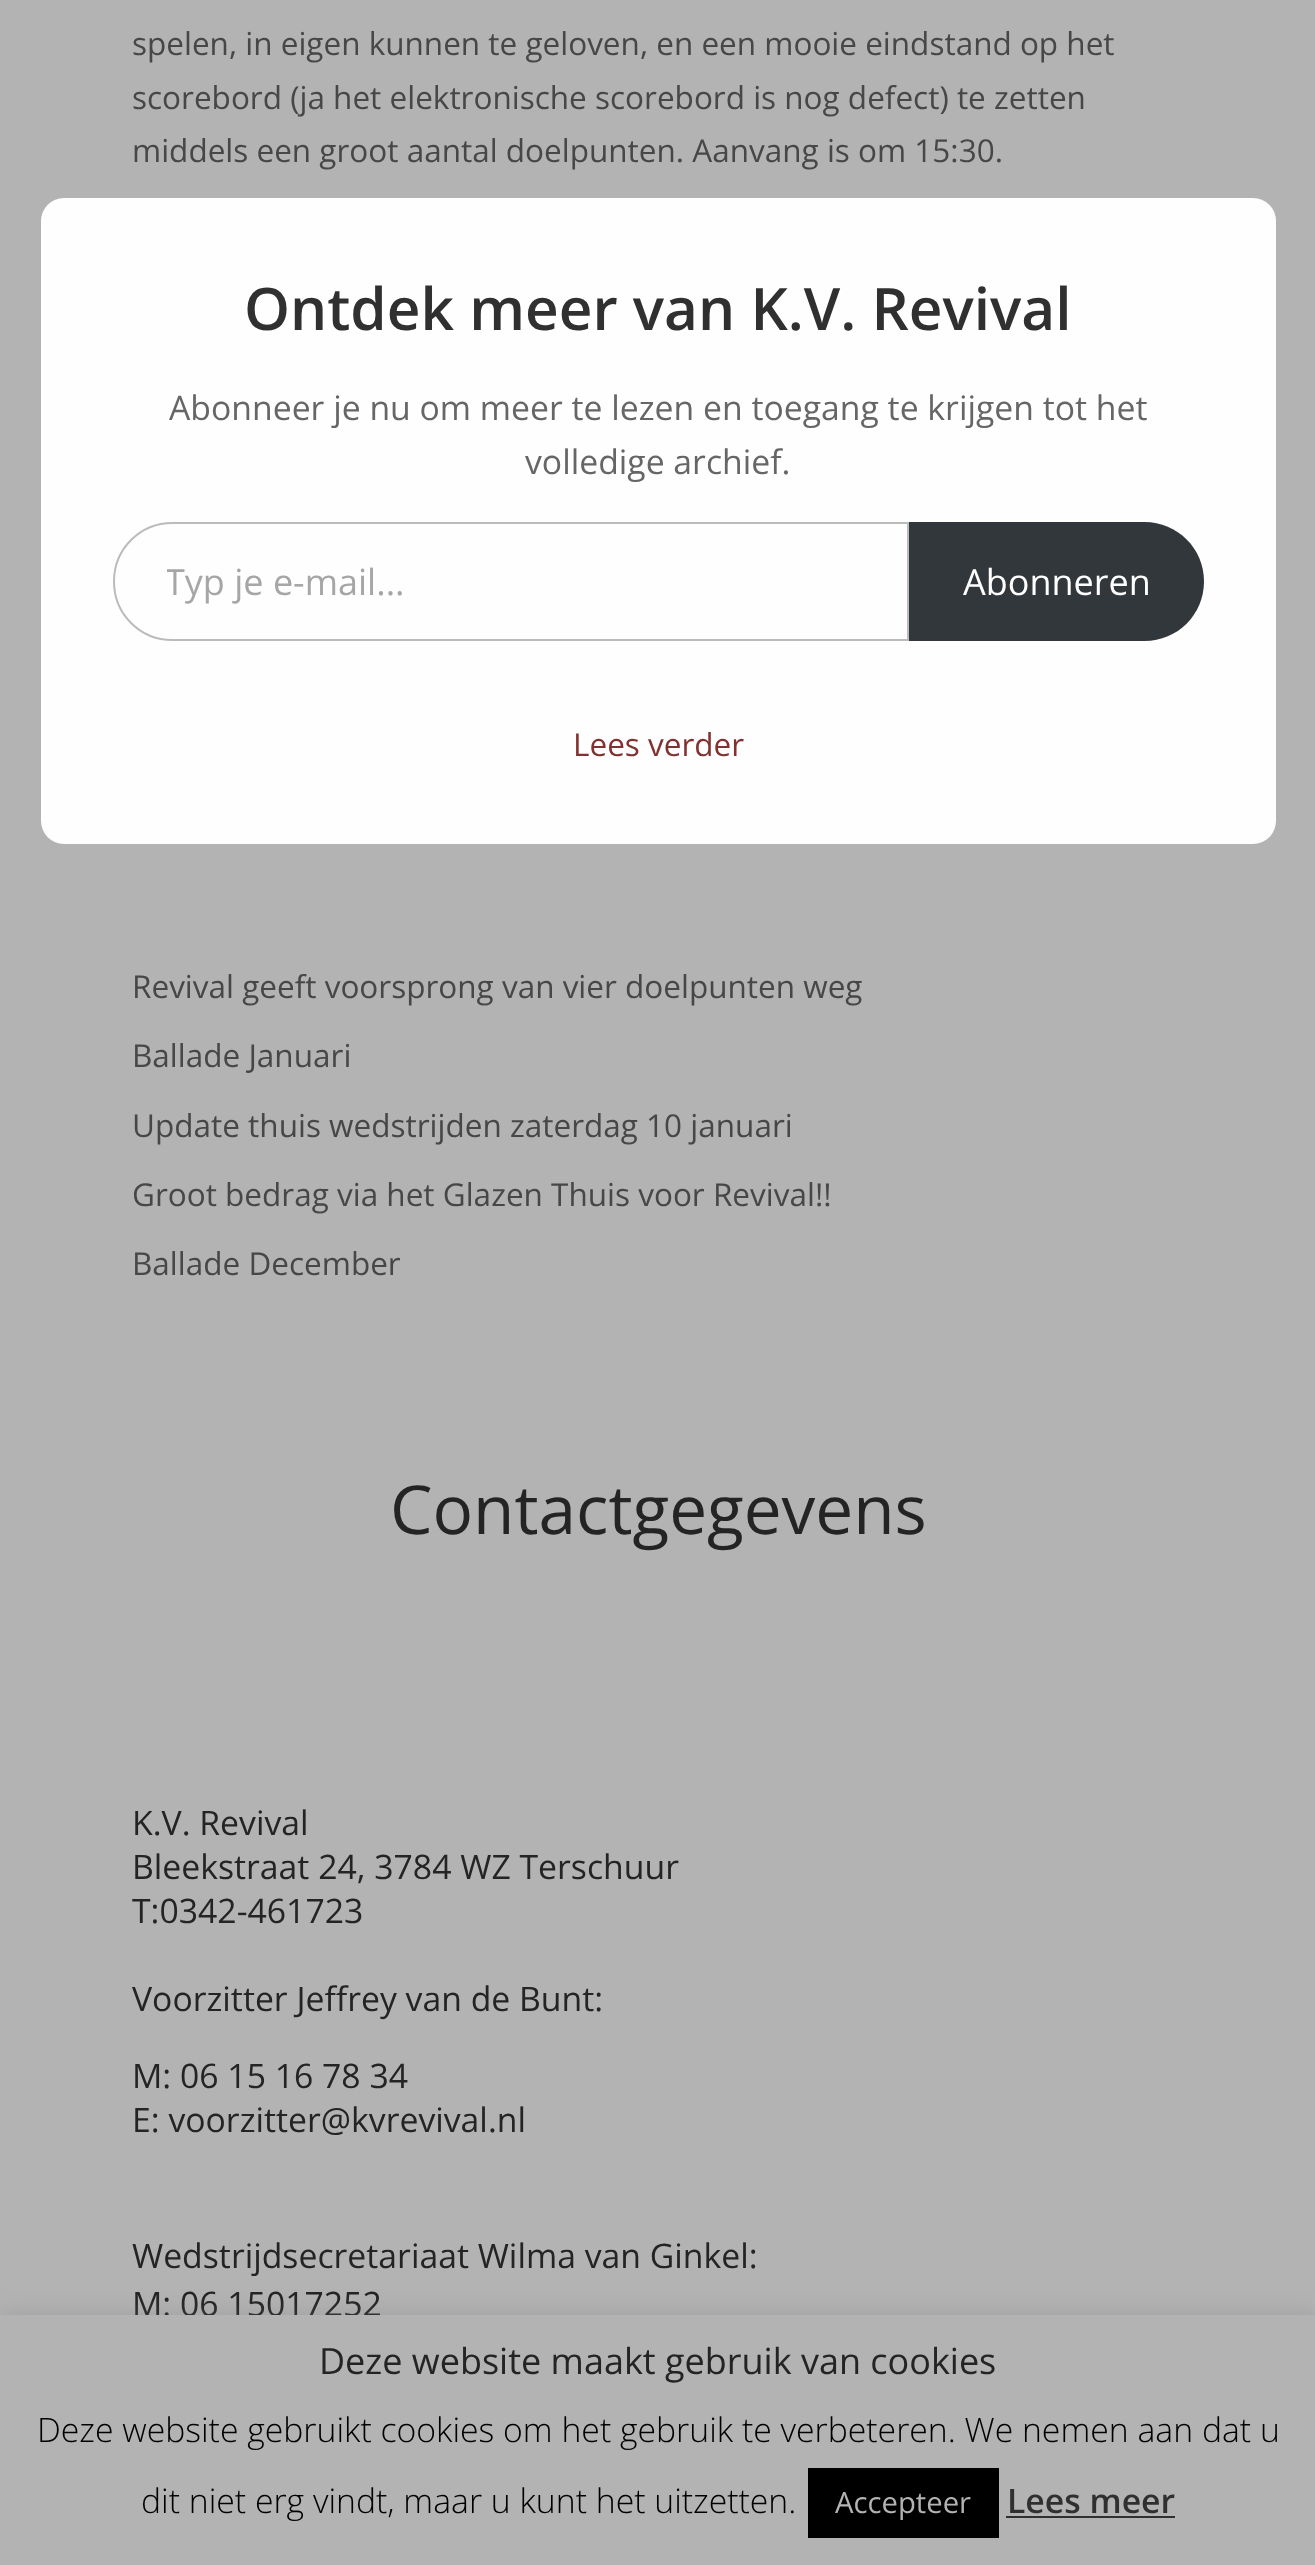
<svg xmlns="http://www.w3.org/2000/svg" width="1315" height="2565">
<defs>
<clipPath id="clip1"><rect x="167" y="556" width="688" height="49"/></clipPath>
</defs>
<rect width="100%" height="100%" fill="#b3b3b3"/>
<text x="132" y="55" style="font-family:Open Sans;font-size:31.5px;fill:#474747">spelen, in eigen kunnen te geloven, en een mooie eindstand op het</text>
<text x="132" y="109" style="font-family:Open Sans;font-size:31.5px;fill:#474747">scorebord (ja het elektronische scorebord is nog defect) te zetten</text>
<text x="132" y="162" style="font-family:Open Sans;font-size:31.5px;fill:#474747">middels een groot aantal doelpunten. Aanvang is om 15:30.</text>
<text x="132" y="998" style="font-family:Open Sans;font-size:31.5px;fill:#474747">Revival geeft voorsprong van vier doelpunten weg</text>
<text x="132" y="1067" style="font-family:Open Sans;font-size:31.5px;fill:#474747">Ballade Januari</text>
<text x="132" y="1137" style="font-family:Open Sans;font-size:31.5px;fill:#474747">Update thuis wedstrijden zaterdag 10 januari</text>
<text x="132" y="1206" style="font-family:Open Sans;font-size:31.5px;fill:#474747">Groot bedrag via het Glazen Thuis voor Revival!!</text>
<text x="132" y="1275" style="font-family:Open Sans;font-size:31.5px;fill:#474747">Ballade December</text>
<text x="390" y="1534" style="font-family:Open Sans;font-size:67.5px;fill:#242424">Contactgegevens</text>
<text x="132" y="1835" style="font-family:Open Sans;font-size:33.75px;fill:#242424">K.V. Revival</text>
<text x="132" y="1879" style="font-family:Open Sans;font-size:33.75px;fill:#242424">Bleekstraat 24, 3784 WZ Terschuur</text>
<text x="132" y="1923" style="font-family:Open Sans;font-size:33.75px;fill:#242424">T:0342-461723</text>
<text x="132" y="2011" style="font-family:Open Sans;font-size:33.75px;fill:#242424">Voorzitter Jeffrey van de Bunt:</text>
<text x="132" y="2088" style="font-family:Open Sans;font-size:33.75px;fill:#242424">M: 06 15 16 78 34</text>
<text x="132" y="2132" style="font-family:Open Sans;font-size:33.75px;fill:#242424">E: voorzitter@kvrevival.nl</text>
<text x="132" y="2268" style="font-family:Open Sans;font-size:33.75px;fill:#242424">Wedstrijdsecretariaat Wilma van Ginkel:</text>
<text x="132" y="2316" style="font-family:Open Sans;font-size:33.75px;fill:#242424">M: 06 15017252</text>
<rect x="41" y="198" width="1235" height="646" rx="23" fill="#fefefe"/>
<text x="244" y="330" style="font-family:Open Sans;font-size:58.5px;font-weight:600;fill:#303030">Ontdek meer van K.V. Revival</text>
<text x="169" y="420" style="font-family:Open Sans;font-size:33.75px;fill:#666">Abonneer je nu om meer te lezen en toegang te krijgen tot het</text>
<text x="525" y="474" style="font-family:Open Sans;font-size:33.75px;fill:#666">volledige archief.</text>
<path d="M172.5 523h735.5v117h-735.5c-32.5 0-58.5-26-58.5-58.5c0-32.5 26-58.5 58.5-58.5z" fill="none" stroke="#bbb" stroke-width="2"/>
<g clip-path="url(#clip1)">
<text x="165" y="595" style="font-family:Open Sans;font-size:36px;fill:#a6a6a6">Typ je e-mail...</text>
</g>
<path d="M909 522h235.5c33 0 59.5 26.5 59.5 59.5c0 33-26.5 59.5-59.5 59.5h-235.5z" fill="#32373c"/>
<text x="963" y="595" style="font-family:Open Sans;font-size:36px;fill:#fff">Abonneren</text>
<text x="573" y="756" style="font-family:Open Sans;font-size:31.5px;fill:#833130">Lees verder</text>
<rect y="2313" width="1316" height="250" fill="#7878784d" filter="blur(11px)"/>
<rect y="2315" width="1315" height="250" fill="#b3b3b3"/>
<text x="319" y="2374" style="font-family:Open Sans;font-size:36px;fill:#242424">Deze website maakt gebruik van cookies</text>
<text x="37" y="2442" style="font-family:Open Sans;font-size:33.75px;font-weight:300;fill:#000">Deze website gebruikt cookies om het gebruik te verbeteren. We nemen aan dat u</text>
<text x="141" y="2513" style="font-family:Open Sans;font-size:33.75px;font-weight:300;fill:#000">dit niet erg vindt, maar u kunt het uitzetten.</text>
<rect x="808" y="2468" width="191" height="70" fill="#000"/>
<text x="835" y="2513" style="font-family:Open Sans;font-size:29.25px;fill:#b3b3b3">Accepteer</text>
<text x="1007" y="2513" style="font-family:Open Sans;font-size:33.75px;font-weight:600;fill:#303030">Lees meer</text>
<rect x="1006" y="2516" width="169" height="2" fill="#303030"/>
</svg>
